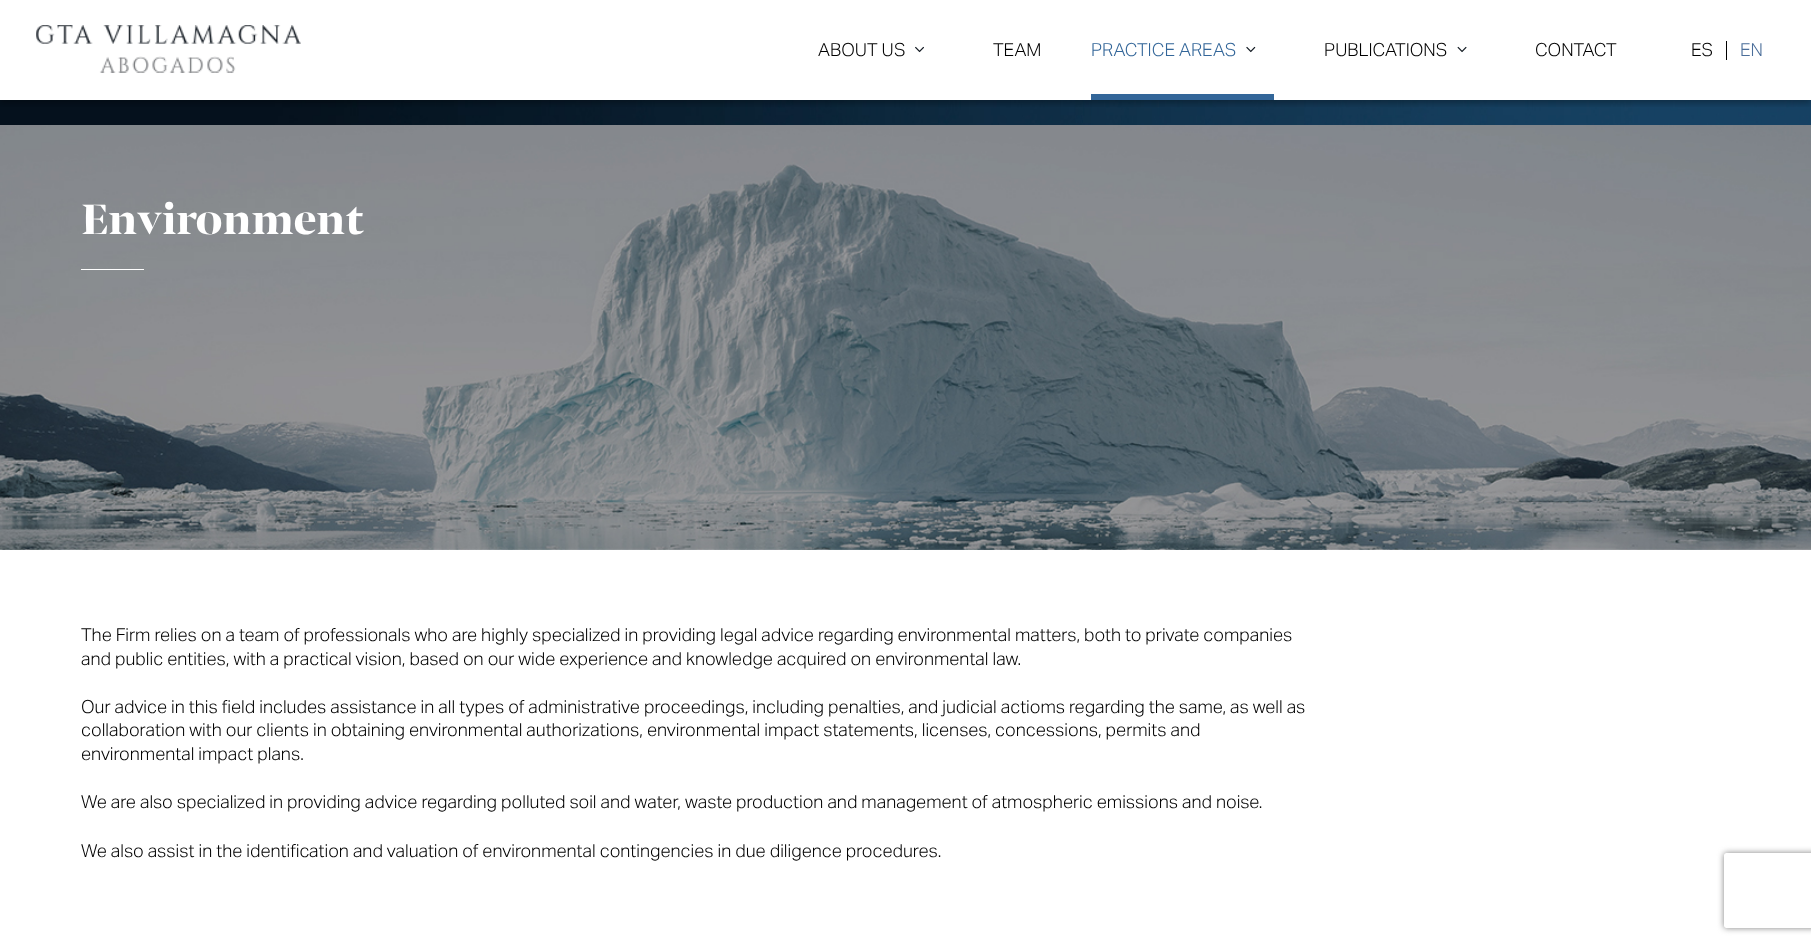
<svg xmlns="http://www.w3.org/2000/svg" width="1811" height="945">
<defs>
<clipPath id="clip1"><rect x="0" y="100" width="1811" height="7"/></clipPath>
<clipPath id="clip2"><path d="M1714 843h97v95h-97zm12.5 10h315c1.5 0 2.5 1 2.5 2.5v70c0 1.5-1 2.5-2.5 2.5h-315c-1.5 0-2.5-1-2.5-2.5v-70c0-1.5 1-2.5 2.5-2.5z" clip-rule="evenodd"/></clipPath>
</defs>
<rect width="100%" height="100%" fill="#fff"/>
<image x="0" y="100" width="1811" height="25" href="media/6.png"/>
<g clip-path="url(#clip1)">
<rect y="3" width="1811" height="100" fill="#0000004d" filter="blur(3px)"/>
</g>
<image x="36" y="25" width="265" height="48" href="media/1.png"/>
<text x="818" y="56" style="font-family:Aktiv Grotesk;font-size:18px;font-weight:300;fill:#000">ABOUT US</text>
<image x="915" y="46" width="9" height="7" href="media/2.png"/>
<text x="993" y="56" style="font-family:Aktiv Grotesk;font-size:18px;font-weight:300;fill:#000">TEAM</text>
<rect x="1091" y="94" width="183" height="6" fill="#369"/>
<text x="1091" y="56" style="font-family:Aktiv Grotesk;font-size:18px;font-weight:300;fill:#369">PRACTICE AREAS</text>
<image x="1246" y="46" width="10" height="7" href="media/3.png"/>
<text x="1324" y="56" style="font-family:Aktiv Grotesk;font-size:18px;font-weight:300;fill:#000">PUBLICATIONS</text>
<image x="1457" y="46" width="10" height="7" href="media/4.png"/>
<text x="1535" y="56" style="font-family:Aktiv Grotesk;font-size:18px;font-weight:300;fill:#000">CONTACT</text>
<text x="1691" y="56" style="font-family:Aktiv Grotesk;font-size:18px;font-weight:300;fill:#000">ES</text>
<rect x="1726" y="41" width="1" height="19" fill="#000"/>
<text x="1740" y="56" style="font-family:Aktiv Grotesk;font-size:18px;font-weight:300;fill:#4b6e9a">EN</text>
<image x="0" y="125" width="1811" height="425" href="media/5.png"/>
<text x="81" y="234" style="font-family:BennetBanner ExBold;font-size:44px;font-weight:800;fill:#fff">Environment</text>
<rect x="81" y="269" width="63" height="1" fill="#fff"/>
<text x="81" y="641" style="font-family:Aktiv Grotesk;font-size:18px;font-weight:300;fill:#000">The Firm relies on a team of professionals who are highly specialized in providing legal advice regarding environmental matters, both to private companies</text>
<text x="81" y="665" style="font-family:Aktiv Grotesk;font-size:18px;font-weight:300;fill:#000">and public entities, with a practical vision, based on our wide experience and knowledge acquired on environmental law.</text>
<text x="81" y="713" style="font-family:Aktiv Grotesk;font-size:18px;font-weight:300;fill:#000">Our advice in this field includes assistance in all types of administrative proceedings, including penalties, and judicial actioms regarding the same, as well as</text>
<text x="81" y="736" style="font-family:Aktiv Grotesk;font-size:18px;font-weight:300;fill:#000">collaboration with our clients in obtaining environmental authorizations, environmental impact statements, licenses, concessions, permits and</text>
<text x="81" y="760" style="font-family:Aktiv Grotesk;font-size:18px;font-weight:300;fill:#000">environmental impact plans.</text>
<text x="81" y="808" style="font-family:Aktiv Grotesk;font-size:18px;font-weight:300;fill:#000">We are also specialized in providing advice regarding polluted soil and water, waste production and management of atmospheric emissions and noise.</text>
<text x="81" y="857" style="font-family:Aktiv Grotesk;font-size:18px;font-weight:300;fill:#000">We also assist in the identification and valuation of environmental contingencies in due diligence procedures.</text>
<g clip-path="url(#clip2)">
<rect x="1724" y="853" width="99" height="75" rx="2.5" fill="#808080" filter="blur(3px)"/>
</g>
</svg>
